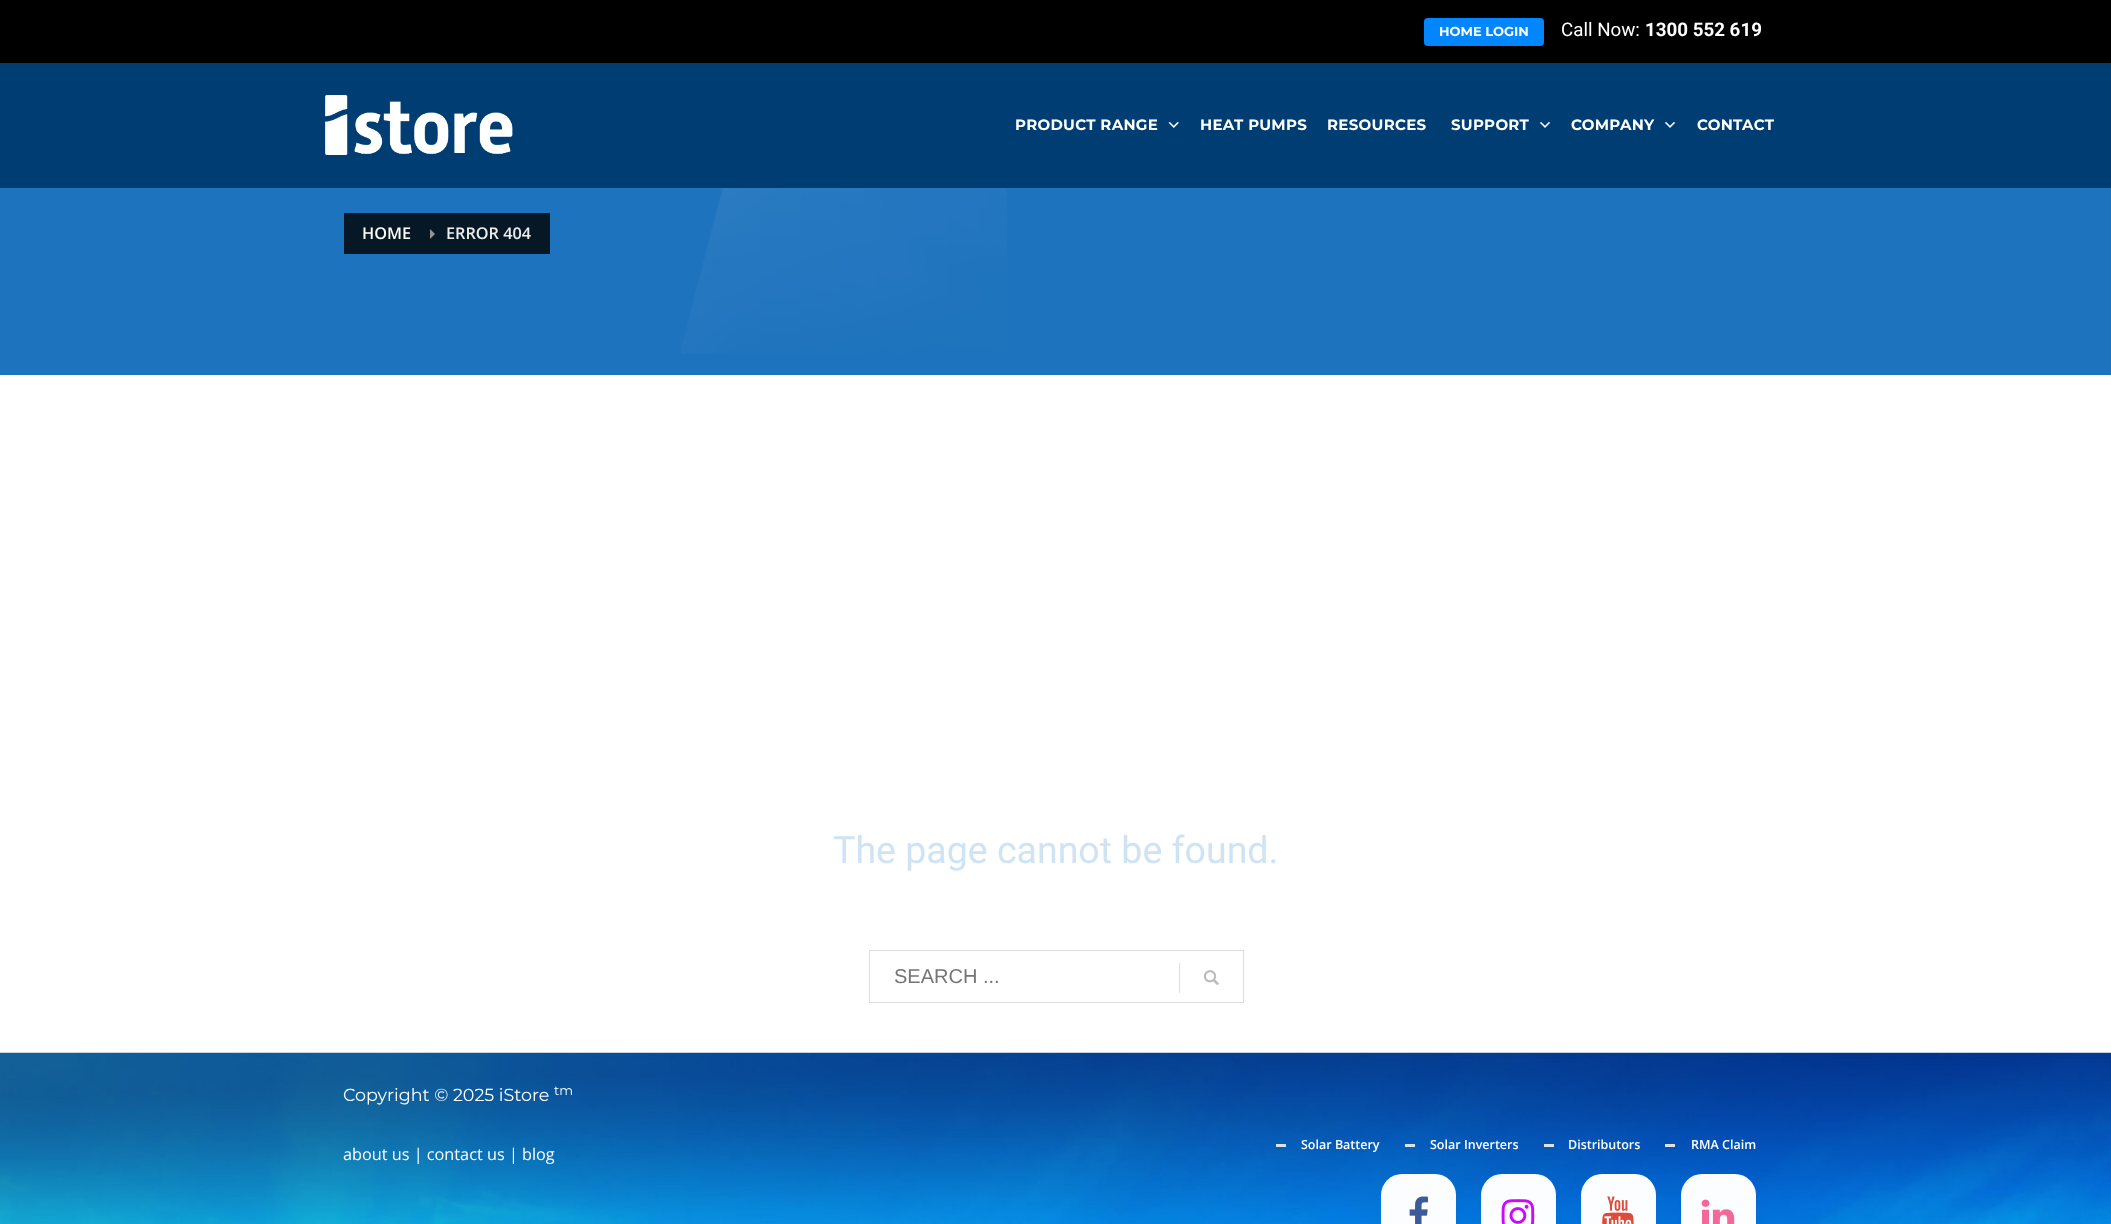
<svg xmlns="http://www.w3.org/2000/svg" width="2111" height="1224">
<rect width="100%" height="100%" fill="#fff"/>
<rect y="63" width="2111" height="125" fill="#003d72"/>
<rect width="2111" height="63" fill="#000"/>
<rect x="1424" y="18" width="120" height="28" rx="4" fill="#0087ff"/>
<text x="1439" y="36" style="font-family:Montserrat;font-size:13px;font-weight:bold;fill:#fff">HOME LOGIN</text>
<text x="1561" y="36" style="font-family:Roboto;font-size:18.75px;fill:#fff">Call Now:</text>
<text x="1645" y="36" style="font-family:Roboto;font-size:18.75px;font-weight:bold;fill:#fff">1300 552 619</text>
<image x="325" y="95" width="188" height="60" href="media/1.png"/>
<text x="1015" y="130" style="font-family:Montserrat;font-size:15px;font-weight:bold;letter-spacing:0.3px;fill:#fff">PRODUCT RANGE</text>
<image x="1168" y="122" width="11" height="6" href="media/2.png"/>
<text x="1200" y="130" style="font-family:Montserrat;font-size:15px;font-weight:bold;letter-spacing:0.3px;fill:#fff">HEAT PUMPS</text>
<text x="1327" y="130" style="font-family:Montserrat;font-size:15px;font-weight:bold;letter-spacing:0.3px;fill:#fff">RESOURCES</text>
<text x="1451" y="130" style="font-family:Montserrat;font-size:15px;font-weight:bold;letter-spacing:0.3px;fill:#fff">SUPPORT</text>
<image x="1539" y="122" width="12" height="6" href="media/3.png"/>
<text x="1571" y="130" style="font-family:Montserrat;font-size:15px;font-weight:bold;letter-spacing:0.3px;fill:#fff">COMPANY</text>
<image x="1664" y="122" width="12" height="6" href="media/3.png"/>
<text x="1697" y="130" style="font-family:Montserrat;font-size:15px;font-weight:bold;letter-spacing:0.3px;fill:#fff">CONTACT</text>
<rect y="188" width="2111" height="187" fill="#1e73be"/>
<rect x="344" y="213" width="206" height="41" fill="#061726"/>
<text x="362" y="239" style="font-family:Open Sans;font-size:16.25px;font-weight:600;fill:#fff">HOME</text>
<path d="M430 239v-10l5 5z" fill="#939393"/>
<text x="446" y="239" style="font-family:Open Sans;font-size:16.25px;font-weight:600;fill:#eee">ERROR 404</text>
<image x="681" y="188" width="326" height="166" href="media/4.png"/>
<text x="833" y="863" style="font-family:Roboto;font-size:37.5px;fill:#cee3f3">The page cannot be found.</text>
<rect x="869.5" y="950.5" width="374" height="52" fill="none" stroke="#ddd"/>
<text x="894" y="983" style="font-family:Liberation Sans;font-size:20px;fill:#757575">SEARCH ...</text>
<rect x="1179" y="963" width="1" height="30" fill="#ddd"/>
<image x="1203" y="970" width="16" height="15" href="media/5.png"/>
<image x="0" y="1052" width="2111" height="172" href="media/6.png"/>
<text x="343" y="1101" style="font-family:Montserrat;font-size:17.5px;fill:#fff">Copyright © 2025 iStore</text>
<text x="554" y="1095" style="font-family:Montserrat;font-size:13px;fill:#fff">tm</text>
<text x="343" y="1160" style="font-family:Open Sans;font-size:16.25px;fill:#fff">about us | contact us | blog</text>
<rect x="1276" y="1144" width="10" height="3" fill="#e1e1e1"/>
<text x="1301" y="1149" style="font-family:Open Sans;font-size:12.5px;font-weight:600;fill:#fff">Solar Battery</text>
<rect x="1405" y="1144" width="10" height="3" fill="#e1e1e1"/>
<text x="1430" y="1149" style="font-family:Open Sans;font-size:12.5px;font-weight:600;fill:#fff">Solar Inverters</text>
<rect x="1544" y="1144" width="10" height="3" fill="#e1e1e1"/>
<text x="1568" y="1149" style="font-family:Open Sans;font-size:12.5px;font-weight:600;fill:#fff">Distributors</text>
<rect x="1665" y="1144" width="10" height="3" fill="#e1e1e1"/>
<text x="1691" y="1149" style="font-family:Open Sans;font-size:12.5px;font-weight:600;fill:#fff">RMA Claim</text>
<rect x="1381" y="1174" width="75" height="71" rx="21" fill="#fffffffc"/>
<image x="1409" y="1196" width="19" height="28" href="media/7.png"/>
<rect x="1481" y="1174" width="75" height="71" rx="21" fill="#fffffffc"/>
<image x="1501" y="1199" width="34" height="25" href="media/8.png"/>
<rect x="1581" y="1174" width="75" height="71" rx="21" fill="#fffffffc"/>
<image x="1602" y="1196" width="32" height="28" href="media/9.png"/>
<rect x="1681" y="1174" width="75" height="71" rx="21" fill="#fffffffc"/>
<image x="1701" y="1199" width="34" height="25" href="media/10.png"/>
</svg>
